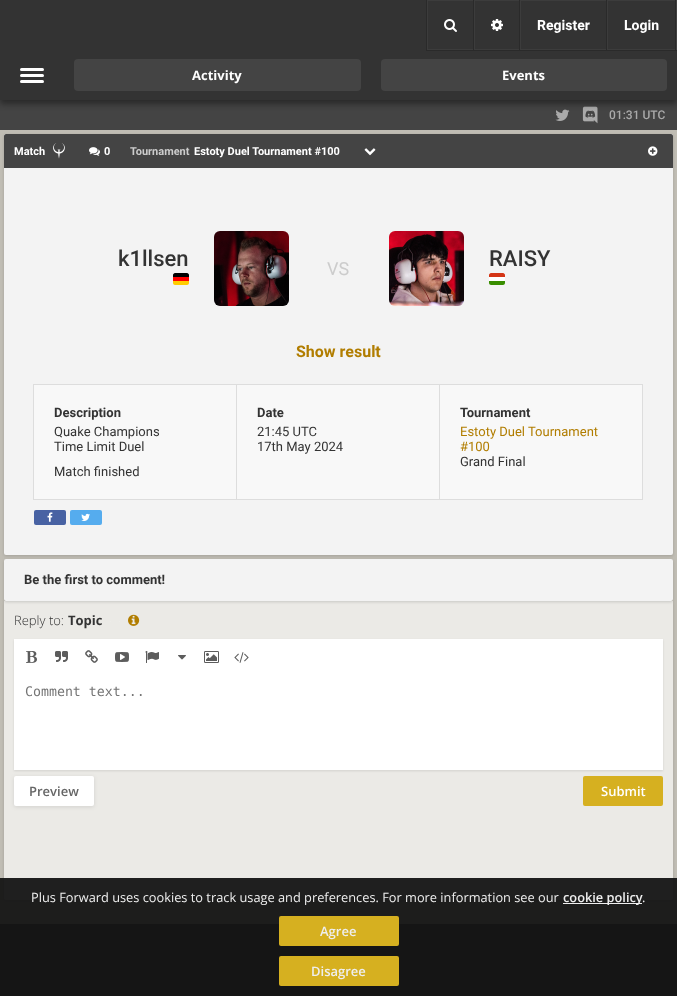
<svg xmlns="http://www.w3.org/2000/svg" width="677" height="996">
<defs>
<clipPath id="clip1"><rect x="426" width="251" height="50"/></clipPath>
</defs>
<rect width="100%" height="100%" fill="#c0bdb4"/>
<rect y="100" width="677" height="30" fill="#444"/>
<image x="555" y="109" width="15" height="12" href="media/3.png"/>
<image x="582" y="106" width="16" height="18" href="media/4.png"/>
<rect y="4" width="677" height="100" fill="#00000066" filter="blur(3px)"/>
<rect width="677" height="100" fill="#333"/>
<g clip-path="url(#clip1)">
<path d="M327-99h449v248h-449zm101 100h249v48h-249z" fill="#3c3c3c" fill-rule="evenodd"/>
</g>
<rect x="426" y="50" width="251" height="1" fill="#2a2a2a"/>
<rect x="426" width="1" height="50" fill="#2a2a2a"/>
<rect x="473" width="1" height="50" fill="#2a2a2a"/>
<image x="444" y="19" width="13" height="13" href="media/1.png"/>
<rect x="519" width="1" height="50" fill="#2a2a2a"/>
<rect x="474" width="1" height="50" fill="#3c3c3c"/>
<image x="491" y="19" width="12" height="12" href="media/2.png"/>
<rect x="606" width="1" height="50" fill="#2a2a2a"/>
<rect x="520" width="1" height="50" fill="#3c3c3c"/>
<text x="537" y="30" style="font-family:Roboto;font-size:14px;font-weight:bold;fill:#fff">Register</text>
<rect x="675" width="1" height="50" fill="#2a2a2a"/>
<rect x="607" width="1" height="50" fill="#3c3c3c"/>
<text x="624" y="30" style="font-family:Roboto;font-size:14px;font-weight:bold;fill:#fff">Login</text>
<rect x="676" width="1" height="50" fill="#424242"/>
<rect x="20" y="74" width="24" height="3" rx="1.5" fill="#fff"/>
<rect x="20" y="68" width="24" height="3" rx="1.5" fill="#fff"/>
<rect x="20" y="80" width="24" height="3" rx="1.5" fill="#fff"/>
<rect x="74" y="59" width="287" height="32" rx="4" fill="#444"/>
<text x="192" y="80" style="font-family:Open Sans;font-size:13px;font-weight:bold;fill:#fff">Activity</text>
<rect x="381" y="59" width="286" height="32" rx="4" fill="#444"/>
<text x="502" y="80" style="font-family:Open Sans;font-size:13px;font-weight:bold;fill:#fff">Events</text>
<text x="609" y="119" style="font-family:Roboto;font-size:12px;font-weight:500;fill:#aaa">01:31 UTC</text>
<rect x="4" y="135" width="669" height="421" rx="2" fill="#00000026" filter="blur(1.5px)"/>
<rect x="4" y="134" width="669" height="421" rx="2" fill="#f3f3f3"/>
<path d="M6 134h665c1 0 2 1 2 2v32h-669v-32c0-1 1-2 2-2z" fill="#444"/>
<text x="14" y="155" style="font-family:Roboto;font-size:11px;font-weight:bold;fill:#fff">Match</text>
<image x="53" y="143" width="12" height="16" href="media/5.png"/>
<image x="89" y="147" width="11" height="9" href="media/6.png"/>
<text x="104" y="155" style="font-family:Roboto;font-size:11px;font-weight:bold;fill:#fff">0</text>
<text x="130" y="155" style="font-family:Roboto;font-size:11px;font-weight:bold;fill:#ccc">Tournament</text>
<text x="194" y="155" style="font-family:Roboto;font-size:11px;font-weight:bold;fill:#fff">Estoty Duel Tournament #100</text>
<image x="364" y="148" width="12" height="8" href="media/7.png"/>
<image x="648" y="146" width="10" height="10" href="media/8.png"/>
<text x="118" y="266" style="font-family:Roboto;font-size:22px;font-weight:500;fill:#333">k1llsen</text>
<path d="M173 281h16v2c0 1-1 2-2 2h-12c-1 0-2-1-2-2z" fill="#fc0"/>
<path d="M175 273h12c1 0 2 1 2 2v2h-16v-2c0-1 1-2 2-2z" fill="#000001"/>
<rect x="173" y="277" width="16" height="4" fill="#f00"/>
<image x="214" y="231" width="75" height="75" href="media/9.png"/>
<image x="389" y="231" width="75" height="75" href="media/10.png"/>
<text x="489" y="266" style="font-family:Roboto;font-size:22px;font-weight:500;fill:#333">RAISY</text>
<rect x="489" y="273" width="16" height="12" rx="2" fill="#fff"/>
<path d="M489 281h16v2c0 1-1 2-2 2h-12c-1 0-2-1-2-2z" fill="#388d00"/>
<path d="M491 273h12c1 0 2 1 2 2v2h-16v-2c0-1 1-2 2-2z" fill="#d43516"/>
<text x="327" y="275" style="font-family:Roboto;font-size:18px;fill:#ccc">VS</text>
<text x="296" y="357" style="font-family:Roboto;font-size:16px;font-weight:bold;fill:#b17d00">Show result</text>
<rect x="34" y="385" width="608" height="114" fill="#f8f8f8"/>
<rect x="33.5" y="384.5" width="203" height="115" fill="none" stroke="#ddd"/>
<text x="54" y="417" style="font-family:Roboto;font-size:13px;font-weight:bold;fill:#333">Description</text>
<text x="54" y="436" style="font-family:Roboto;font-size:13px;fill:#333">Quake Champions</text>
<text x="54" y="451" style="font-family:Roboto;font-size:13px;fill:#333">Time Limit Duel</text>
<text x="54" y="476" style="font-family:Roboto;font-size:13px;fill:#333">Match finished</text>
<rect x="236.5" y="384.5" width="203" height="115" fill="none" stroke="#ddd"/>
<text x="257" y="417" style="font-family:Roboto;font-size:13px;font-weight:bold;fill:#333">Date</text>
<text x="257" y="436" style="font-family:Roboto;font-size:13px;fill:#333">21:45 UTC</text>
<text x="257" y="451" style="font-family:Roboto;font-size:13px;fill:#333">17th May 2024</text>
<rect x="439.5" y="384.5" width="203" height="115" fill="none" stroke="#ddd"/>
<text x="460" y="417" style="font-family:Roboto;font-size:13px;font-weight:bold;fill:#333">Tournament</text>
<text x="460" y="436" style="font-family:Roboto;font-size:13px;fill:#b17d00">Estoty Duel Tournament</text>
<text x="460" y="451" style="font-family:Roboto;font-size:13px;fill:#b17d00">#100</text>
<text x="460" y="466" style="font-family:Roboto;font-size:13px;fill:#333">Grand Final</text>
<rect x="34" y="510" width="32" height="15" rx="2" fill="#4862a3"/>
<image x="47" y="512" width="6" height="10" href="media/11.png"/>
<rect x="70" y="510" width="32" height="15" rx="2" fill="#55acee"/>
<image x="81" y="513" width="9" height="8" href="media/12.png"/>
<rect x="4" y="602" width="669" height="299" rx="2" fill="#00000026" filter="blur(1.5px)"/>
<path d="M4 601h669v297c0 1-1 2-2 2h-665c-1 0-2-1-2-2z" fill="#ebeae6"/>
<rect x="4" y="560" width="669" height="42" rx="2" fill="#00000026" filter="blur(1.5px)"/>
<rect x="4" y="559" width="669" height="42" rx="2" fill="#f3f3f3"/>
<text x="24" y="584" style="font-family:Roboto;font-size:13px;font-weight:bold;fill:#333">Be the first to comment!</text>
<text x="14" y="625" style="font-family:Open Sans;font-size:13px;font-weight:300;fill:#333">Reply to:</text>
<text x="68" y="625" style="font-family:Open Sans;font-size:13px;font-weight:bold;fill:#333">Topic</text>
<rect x="110" y="621" width="1" height="1" fill="#edece9"/>
<rect x="119" y="621" width="1" height="1" fill="#edece9"/>
<image x="128" y="614" width="12" height="12" href="media/13.png"/>
<rect x="14" y="640" width="649" height="131" fill="#0000001a" filter="blur(1px)"/>
<rect x="14" y="639" width="649" height="131" fill="#fff"/>
<image x="26" y="651" width="11" height="12" href="media/14.png"/>
<image x="55" y="651" width="13" height="11" href="media/15.png"/>
<image x="85" y="650" width="13" height="13" href="media/16.png"/>
<image x="115" y="652" width="14" height="10" href="media/17.png"/>
<image x="145" y="651" width="14" height="12" href="media/18.png"/>
<image x="178" y="655" width="8" height="5" href="media/19.png"/>
<image x="204" y="651" width="15" height="12" href="media/20.png"/>
<image x="234" y="652" width="15" height="11" href="media/21.png"/>
<text x="25" y="696" style="font-family:DejaVu Sans Mono;font-size:13.25px;fill:#757575">Comment text...</text>
<rect x="14" y="777" width="80" height="30" rx="2" fill="#0000001a" filter="blur(2px)"/>
<rect x="14" y="776" width="80" height="30" rx="2" fill="#fff"/>
<text x="29" y="796" style="font-family:Open Sans;font-size:13px;font-weight:600;fill:#666">Preview</text>
<rect x="583" y="776" width="80" height="30" rx="2" fill="#d6b020"/>
<text x="601" y="796" style="font-family:Open Sans;font-size:13px;font-weight:600;fill:#fff">Submit</text>
<rect y="924" width="677" height="72" fill="#333"/>
<rect y="878" width="677" height="118" fill="#141414f2"/>
<text x="31" y="902" style="font-family:Open Sans;font-size:12.8px;fill:#eee">Plus Forward uses cookies to track usage and preferences. For more information see our</text>
<rect x="563" y="903" width="79" height="1" fill="#eee"/>
<text x="563" y="902" style="font-family:Open Sans;font-size:12.8px;font-weight:600;fill:#eee">cookie policy</text>
<text x="642" y="902" style="font-family:Open Sans;font-size:12.8px;fill:#eee">.</text>
<rect x="279" y="916" width="120" height="30" rx="2" fill="#d6b020"/>
<text x="320" y="936" style="font-family:Open Sans;font-size:13px;font-weight:600;fill:#eee">Agree</text>
<rect x="279" y="956" width="120" height="30" rx="2" fill="#d6b020"/>
<text x="311" y="976" style="font-family:Open Sans;font-size:13px;font-weight:600;fill:#eee">Disagree</text>
</svg>
